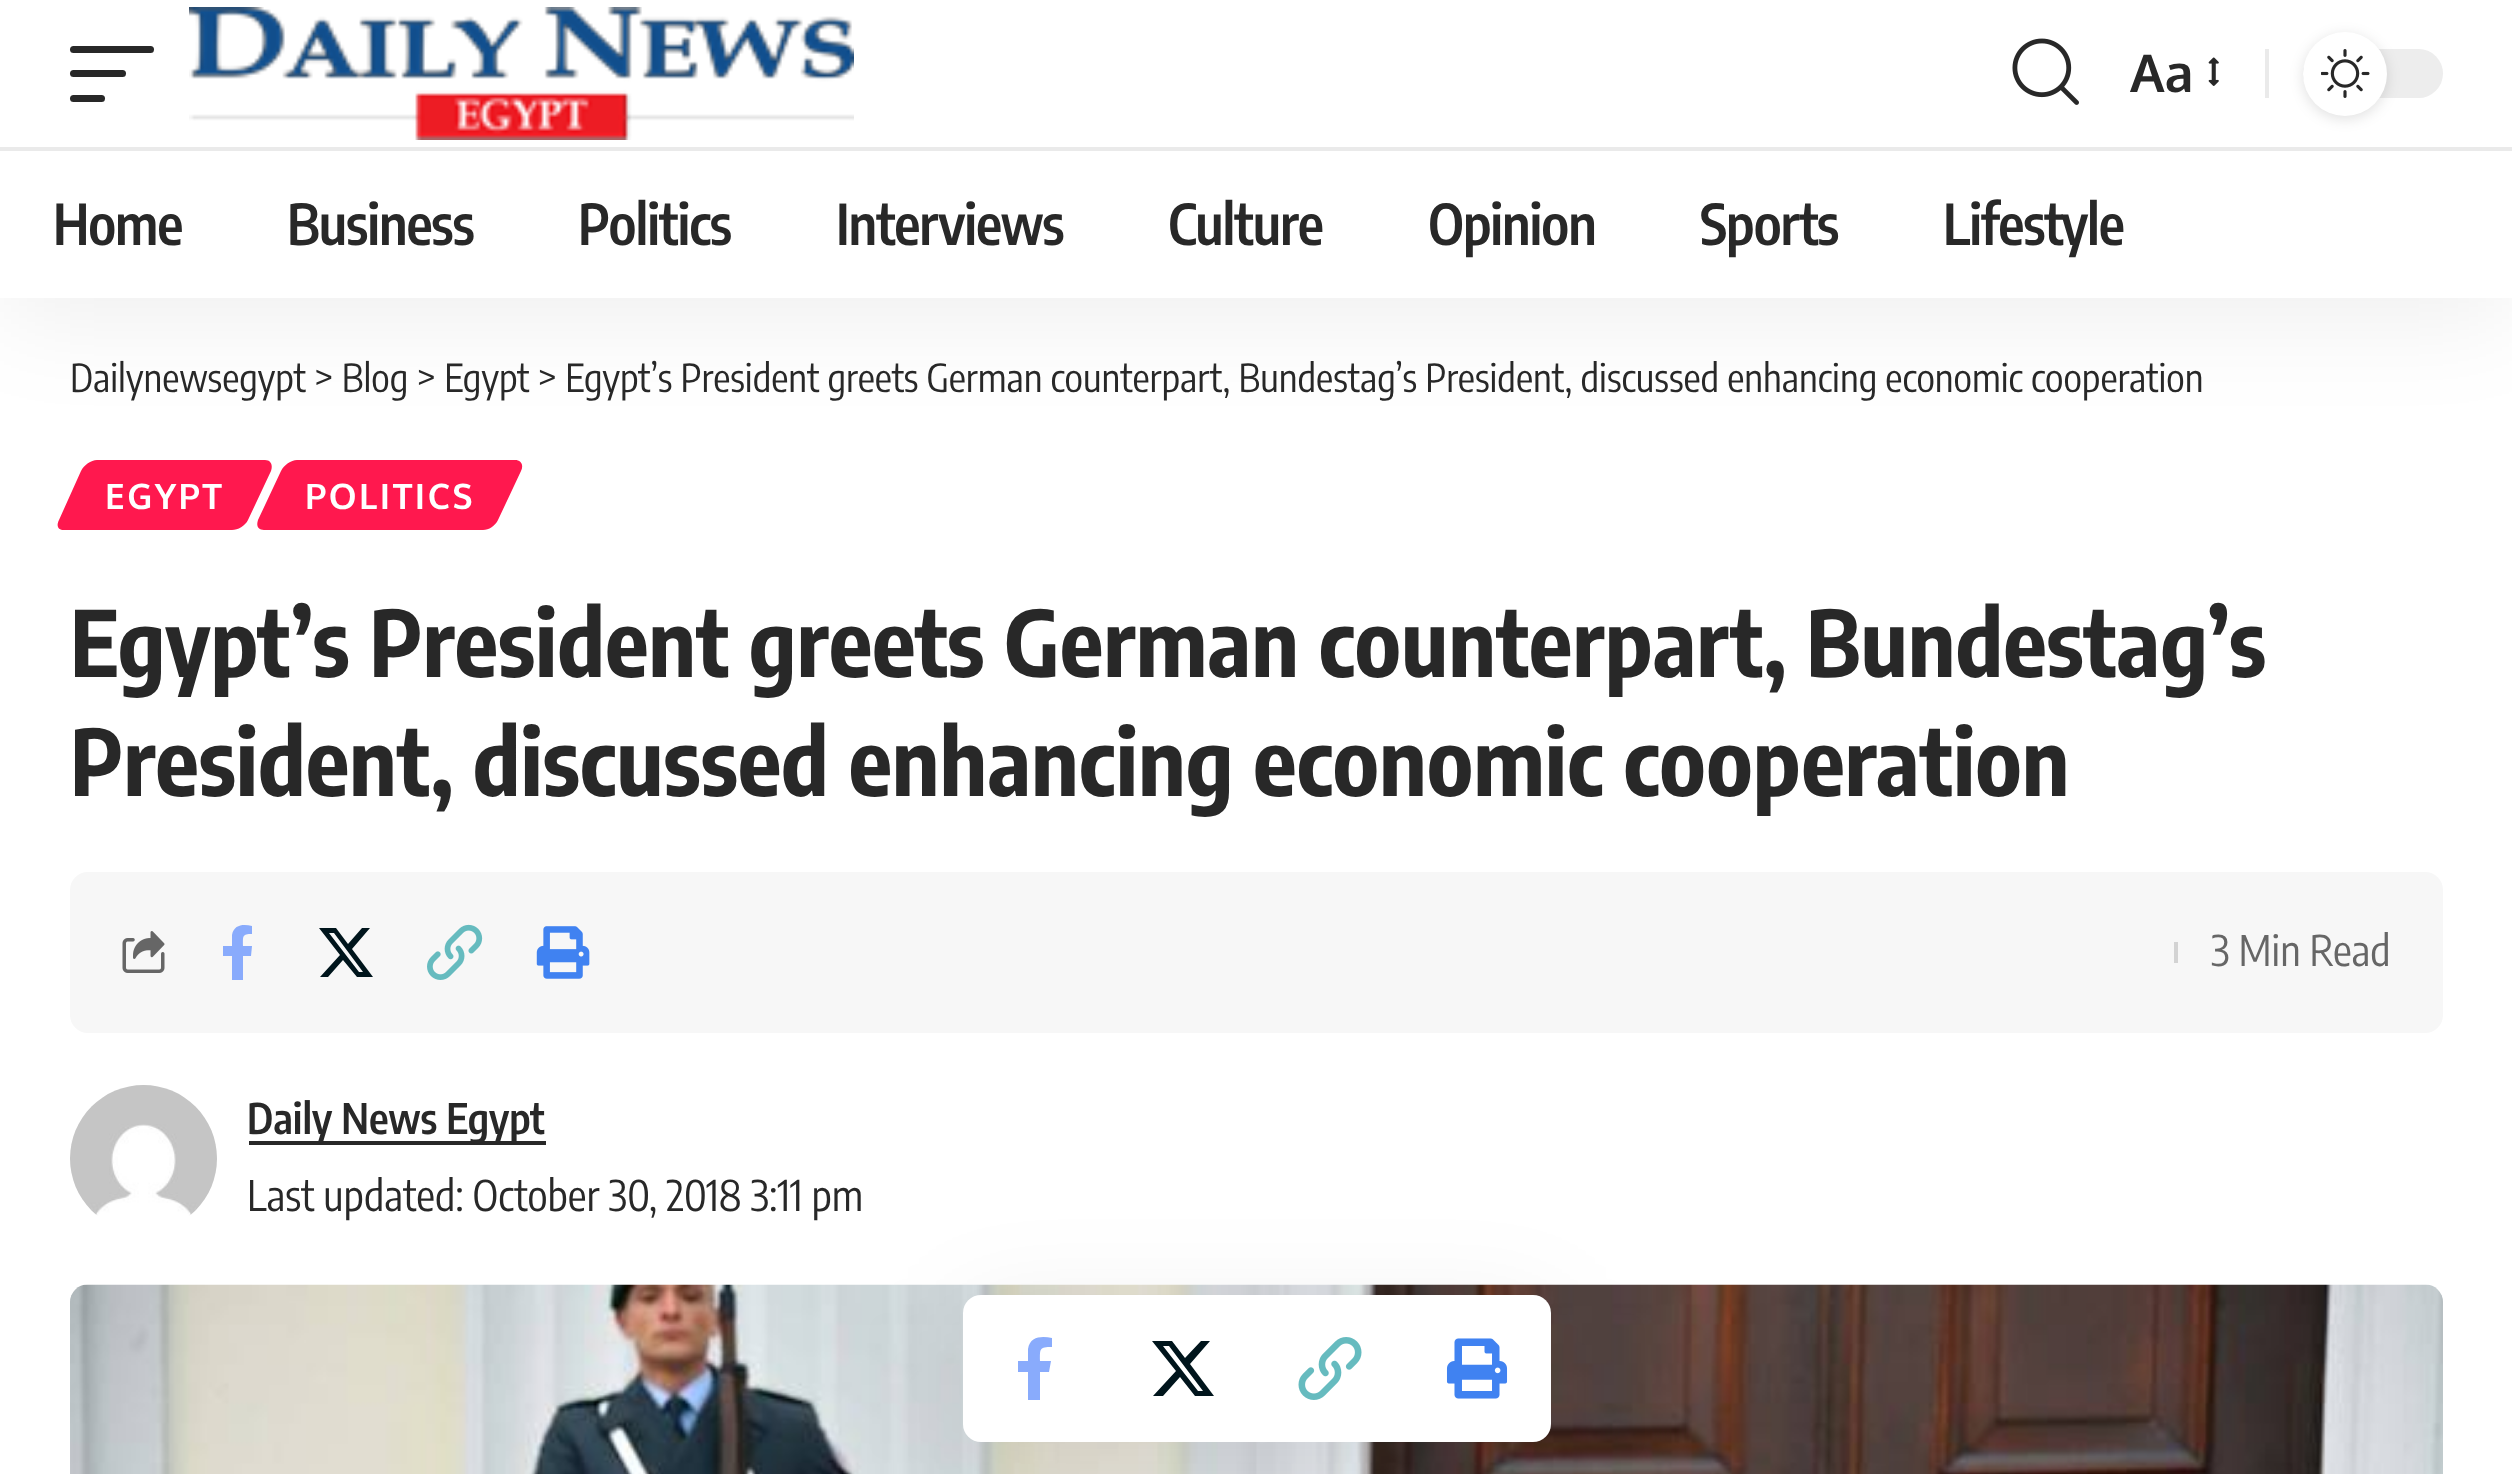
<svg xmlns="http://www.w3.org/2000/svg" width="2512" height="1474">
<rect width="100%" height="100%" fill="#fff"/>
<path d="M97 460h168c6 0 8 5 6 11l-23 49c-3 6-10 10-16 10h-168c-6 0-8-4-5-10l22-49c3-6 10-11 16-11z" fill="#ff184e"/>
<path d="M297 460h218c6 0 9 5 6 11l-23 49c-3 6-9 10-15 10h-219c-6 0-8-4-6-10l23-49c3-6 10-11 16-11z" fill="#ff184e"/>
<rect y="14" width="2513" height="298" fill="#00000012" filter="blur(52.5px)"/>
<rect width="2512" height="298" fill="#fff"/>
<rect x="70" y="46" width="84" height="7" rx="3.5" fill="#282828"/>
<rect x="70" y="70" width="56" height="7" rx="3.5" fill="#282828"/>
<rect x="70" y="95" width="35" height="7" rx="3.5" fill="#282828"/>
<image x="189" y="7" width="665" height="133" href="media/1.png"/>
<image x="2012" y="38" width="67" height="67" href="media/2.png"/>
<text x="2130" y="92" style="font-family:Oxygen;font-size:52px;font-weight:bold;fill:#282828">Aa</text>
<image x="2208" y="57" width="11" height="29" href="media/3.png"/>
<rect x="2265" y="49" width="4" height="49" fill="#eaeaea"/>
<rect x="2303" y="49" width="140" height="49" rx="24.5" fill="#ededed"/>
<rect x="2303" y="35" width="84" height="84" rx="42" fill="#0000001f" filter="blur(7px)"/>
<circle cx="2345" cy="74" r="42" fill="#fff"/>
<image x="2321" y="49" width="49" height="49" href="media/4.png"/>
<rect y="147" width="2512" height="4" fill="#eaeaea"/>
<text x="53" y="245" style="font-family:Encode Sans Condensed;font-size:56px;font-weight:600;letter-spacing:-1.1px;fill:#282828">Home</text>
<text x="287" y="245" style="font-family:Encode Sans Condensed;font-size:56px;font-weight:600;letter-spacing:-1.1px;fill:#282828">Business</text>
<text x="578" y="245" style="font-family:Encode Sans Condensed;font-size:56px;font-weight:600;letter-spacing:-1.1px;fill:#282828">Politics</text>
<text x="836" y="245" style="font-family:Encode Sans Condensed;font-size:56px;font-weight:600;letter-spacing:-1.1px;fill:#282828">Interviews</text>
<text x="1168" y="245" style="font-family:Encode Sans Condensed;font-size:56px;font-weight:600;letter-spacing:-1.1px;fill:#282828">Culture</text>
<text x="1428" y="245" style="font-family:Encode Sans Condensed;font-size:56px;font-weight:600;letter-spacing:-1.1px;fill:#282828">Opinion</text>
<text x="1700" y="245" style="font-family:Encode Sans Condensed;font-size:56px;font-weight:600;letter-spacing:-1.1px;fill:#282828">Sports</text>
<text x="1943" y="245" style="font-family:Encode Sans Condensed;font-size:56px;font-weight:600;letter-spacing:-1.1px;fill:#282828">Lifestyle</text>
<text x="70" y="392" style="font-family:Encode Sans Condensed;font-size:38.5px;fill:#282828">Dailynewsegypt &gt; Blog &gt; Egypt &gt; Egypt’s President greets German counterpart, Bundestag’s President, discussed enhancing economic cooperation</text>
<text x="105" y="509" style="font-family:Oxygen;font-size:35px;font-weight:bold;letter-spacing:2.5px;fill:#fff">EGYPT</text>
<text x="305" y="509" style="font-family:Oxygen;font-size:35px;font-weight:bold;letter-spacing:2.5px;fill:#fff">POLITICS</text>
<text x="70" y="677" style="font-family:Encode Sans Condensed;font-size:91px;font-weight:bold;fill:#282828">Egypt’s President greets German counterpart, Bundestag’s</text>
<text x="70" y="796" style="font-family:Encode Sans Condensed;font-size:91px;font-weight:bold;fill:#282828">President, discussed enhancing economic cooperation</text>
<rect x="70" y="872" width="2373" height="161" rx="18" fill="#f7f7f7"/>
<image x="122" y="931" width="43" height="42" href="media/5.png"/>
<path d="M251 956l1-10h-9c0-10-1-12 9-12v-8c-8-2-18-2-20 9v11h-9v10h9v24h11v-24z" fill="#89abfc"/>
<path d="M362 928h8l-18 21l21 28h-16l-14-17l-15 17h-8l20-22l-21-27h17l12 16zm-3 44h4l-29-39h-5z" fill="#00151c"/>
<image x="427" y="924" width="56" height="56" href="media/6.png"/>
<image x="536" y="926" width="54" height="53" href="media/7.png"/>
<rect x="2174" y="942" width="4" height="21" fill="#d3d3d3"/>
<text x="2211" y="966" style="font-family:Encode Sans Condensed;font-size:42px;fill:#666">3 Min Read</text>
<image x="70" y="1085" width="147" height="131" href="media/8.png"/>
<rect x="249" y="1141" width="297" height="4" fill="#282828"/>
<text x="247" y="1134" style="font-family:Encode Sans Condensed;font-size:42px;font-weight:600;fill:#282828">Daily News Egypt</text>
<text x="247" y="1211" style="font-family:Encode Sans Condensed;font-size:42px;fill:#282828">Last updated: October 30, 2018 3:11 pm</text>
<image x="70" y="1284" width="2373" height="190" href="media/11.png"/>
<rect x="963" y="1313" width="588" height="147" rx="18" fill="#00000012" filter="blur(52.5px)"/>
<rect x="963" y="1295" width="588" height="147" rx="18" fill="#fff"/>
<path d="M1049 1372l2-11h-11c0-12-1-14 12-14v-9c-10-2-22-2-24 11v12h-10v11h10v28h12v-28z" fill="#89abfc"/>
<path d="M1201 1341h9l-20 23l24 32h-19l-15-19l-17 19h-10l23-25l-24-30h20l13 17zm-3 50h5l-34-45h-6z" fill="#00151c"/>
<image x="1298" y="1337" width="64" height="63" href="media/9.png"/>
<image x="1446" y="1338" width="62" height="61" href="media/10.png"/>
</svg>
